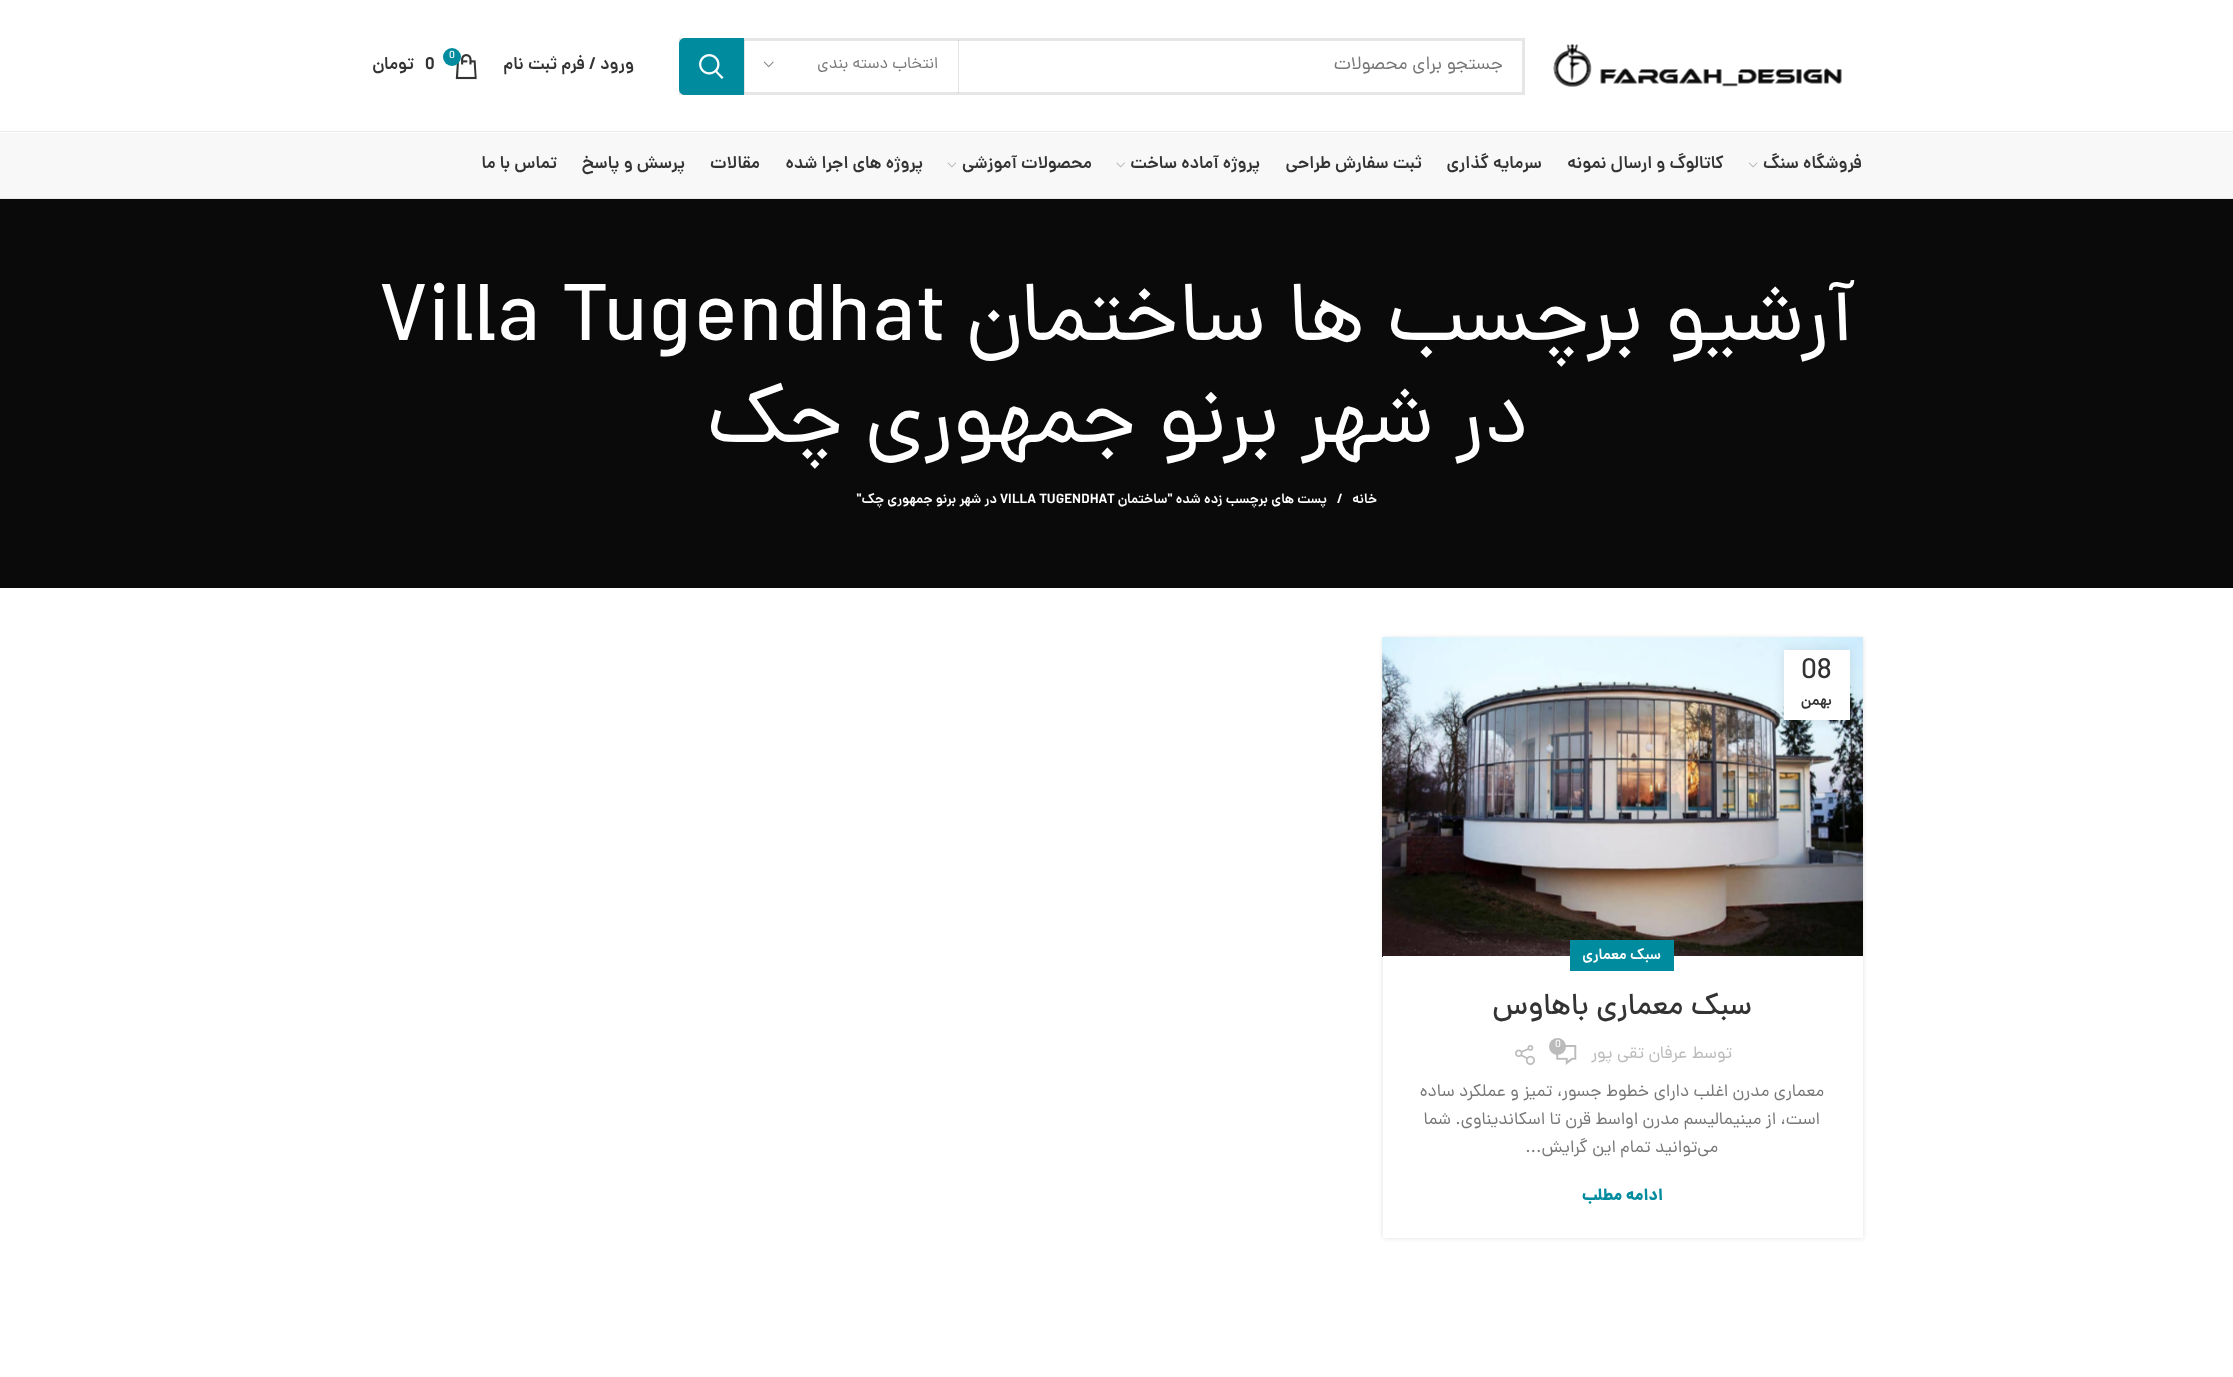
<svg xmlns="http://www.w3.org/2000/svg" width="2233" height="1377">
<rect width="100%" height="100%" fill="#fff"/>
<rect y="131" width="2233" height="1" fill="#e8e8e8"/>
<image x="1553" y="43" width="289" height="44" href="media/1.png"/>
<rect x="680.5" y="39.5" width="843" height="54" fill="none" stroke="#e6e6e6" stroke-width="3"/>
<text x="1503" y="69" style="font-family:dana;font-size:18.75px;direction:rtl;fill:#777">جستجو برای محصولات</text>
<rect x="958" y="40" width="1" height="53" fill="#0000001a"/>
<rect x="744" y="40" width="1" height="53" fill="#0000001a"/>
<text x="938" y="68" style="font-family:dana;font-size:16.25px;direction:rtl;fill:#777">انتخاب دسته بندی</text>
<image x="763" y="61" width="11" height="7" href="media/2.png"/>
<path d="M685 38h59v57h-59c-3.5 0-6-2.5-6-6v-45c0-3.5 2.5-6 6-6z" fill="#008b9e"/>
<image x="699" y="54" width="25" height="25" href="media/3.png"/>
<text x="634" y="69" style="font-family:dana;font-size:17.5px;font-weight:600;direction:rtl;fill:#333">ورود / فرم ثبت نام</text>
<image x="455" y="54" width="22" height="26" href="media/4.png"/>
<circle cx="452" cy="57" r="9" fill="#008b9e"/>
<text x="449" y="58" style="font-family:dana;font-size:11px;fill:#fff">0</text>
<text x="425" y="69" style="font-family:dana;font-size:17.5px;font-weight:600;fill:#333">0</text>
<text x="414" y="69" style="font-family:dana;font-size:17.5px;font-weight:600;direction:rtl;fill:#333">تومان</text>
<rect y="133" width="2233" height="65" fill="#f8f8f8"/>
<rect y="198" width="2233" height="1" fill="#e8e8e8"/>
<text x="1862" y="168" style="font-family:dana;font-size:17.5px;font-weight:600;direction:rtl;fill:#333">فروشگاه سنگ</text>
<image x="1749" y="162" width="9" height="6" href="media/5.png"/>
<text x="1724" y="168" style="font-family:dana;font-size:17.5px;font-weight:600;direction:rtl;fill:#333">کاتالوگ و ارسال نمونه</text>
<text x="1542" y="168" style="font-family:dana;font-size:17.5px;font-weight:600;direction:rtl;fill:#333">سرمایه گذاری</text>
<text x="1422" y="168" style="font-family:dana;font-size:17.5px;font-weight:600;direction:rtl;fill:#333">ثبت سفارش طراحی</text>
<text x="1260" y="168" style="font-family:dana;font-size:17.5px;font-weight:600;direction:rtl;fill:#333">پروژه آماده ساخت</text>
<image x="1116" y="162" width="9" height="6" href="media/6.png"/>
<text x="1092" y="168" style="font-family:dana;font-size:17.5px;font-weight:600;direction:rtl;fill:#333">محصولات آموزشی</text>
<image x="947" y="162" width="9" height="6" href="media/7.png"/>
<text x="923" y="168" style="font-family:dana;font-size:17.5px;font-weight:600;direction:rtl;fill:#333">پروژه های اجرا شده</text>
<text x="760" y="168" style="font-family:dana;font-size:17.5px;font-weight:600;direction:rtl;fill:#333">مقالات</text>
<text x="685" y="168" style="font-family:dana;font-size:17.5px;font-weight:600;direction:rtl;fill:#333">پرسش و پاسخ</text>
<text x="557" y="168" style="font-family:dana;font-size:17.5px;font-weight:600;direction:rtl;fill:#333">تماس با ما</text>
<rect y="199" width="2233" height="389" fill="#0a0a0a"/>
<text x="1854" y="340" style="font-family:dana;font-size:85px;direction:rtl;fill:#fff">آرشیو برچسب ها ساختمان</text>
<text x="380" y="340" style="font-family:dana;font-size:85px;fill:#fff">Villa Tugendhat</text>
<text x="1528" y="442" style="font-family:dana;font-size:85px;direction:rtl;fill:#fff">در شهر برنو جمهوری چک</text>
<text x="1377" y="503" style="font-family:dana;font-size:13.75px;font-weight:600;direction:rtl;fill:#fff">خانه</text>
<text x="1337" y="503" style="font-family:dana;font-size:13.75px;font-weight:600;fill:#fff">/</text>
<text x="1327" y="503" style="font-family:dana;font-size:13.75px;font-weight:600;direction:rtl;fill:#fff">پست های برچسب زده شده "ساختمان</text>
<text x="1000" y="503" style="font-family:dana;font-size:13.75px;font-weight:600;fill:#fff">VILLA TUGENDHAT</text>
<text x="997" y="503" style="font-family:dana;font-size:13.75px;font-weight:600;direction:rtl;fill:#fff">در شهر برنو جمهوری چک"</text>
<rect x="1383" y="638" width="480" height="600" fill="#0000001f" filter="blur(2.5px)"/>
<image x="1382" y="637" width="481" height="320" href="media/8.png"/>
<rect x="1784" y="650" width="66" height="70" fill="#0000001a" filter="blur(5.5px)"/>
<rect x="1784" y="650" width="66" height="70" fill="#fff"/>
<text x="1801" y="678" style="font-family:dana;font-size:30px;fill:#333">08</text>
<text x="1832" y="705" style="font-family:dana;font-size:15px;font-weight:600;direction:rtl;fill:#333">بهمن</text>
<rect x="1383" y="956" width="480" height="282" fill="#fff"/>
<rect x="1570" y="940" width="104" height="31" fill="#008b9e"/>
<text x="1661" y="959" style="font-family:dana;font-size:15px;font-weight:600;direction:rtl;fill:#fff">سبک معماری</text>
<text x="1752" y="1014" style="font-family:dana;font-size:30px;font-weight:500;direction:rtl;fill:#333">سبک معماری باهاوس</text>
<image x="1556" y="1045" width="21" height="20" href="media/9.png"/>
<circle cx="1557.5" cy="1046.5" r="8.5" fill="#bbb"/>
<text x="1555" y="1047" style="font-family:dana;font-size:11px;fill:#fff">0</text>
<text x="1732" y="1058" style="font-family:dana;font-size:17.5px;direction:rtl;fill:#bbb">توسط</text>
<text x="1687" y="1058" style="font-family:dana;font-size:17.5px;direction:rtl;fill:#bbb">عرفان تقی پور</text>
<image x="1515" y="1045" width="20" height="20" href="media/10.png"/>
<text x="1824" y="1096" style="font-family:dana;font-size:17.5px;direction:rtl;fill:#777">معماری مدرن اغلب دارای خطوط جسور، تمیز و عملکرد ساده</text>
<text x="1820" y="1124" style="font-family:dana;font-size:17.5px;direction:rtl;fill:#777">است، از مینیمالیسم مدرن اواسط قرن تا اسکاندیناوی.</text>
<text x="1451" y="1124" style="font-family:dana;font-size:17.5px;direction:rtl;fill:#777">شما</text>
<text x="1718" y="1152" style="font-family:dana;font-size:17.5px;direction:rtl;fill:#777">می‌توانید تمام این گرایش‌...</text>
<text x="1663" y="1200" style="font-family:dana;font-size:16.25px;font-weight:800;direction:rtl;fill:#008b9e">ادامه مطلب</text>
</svg>
